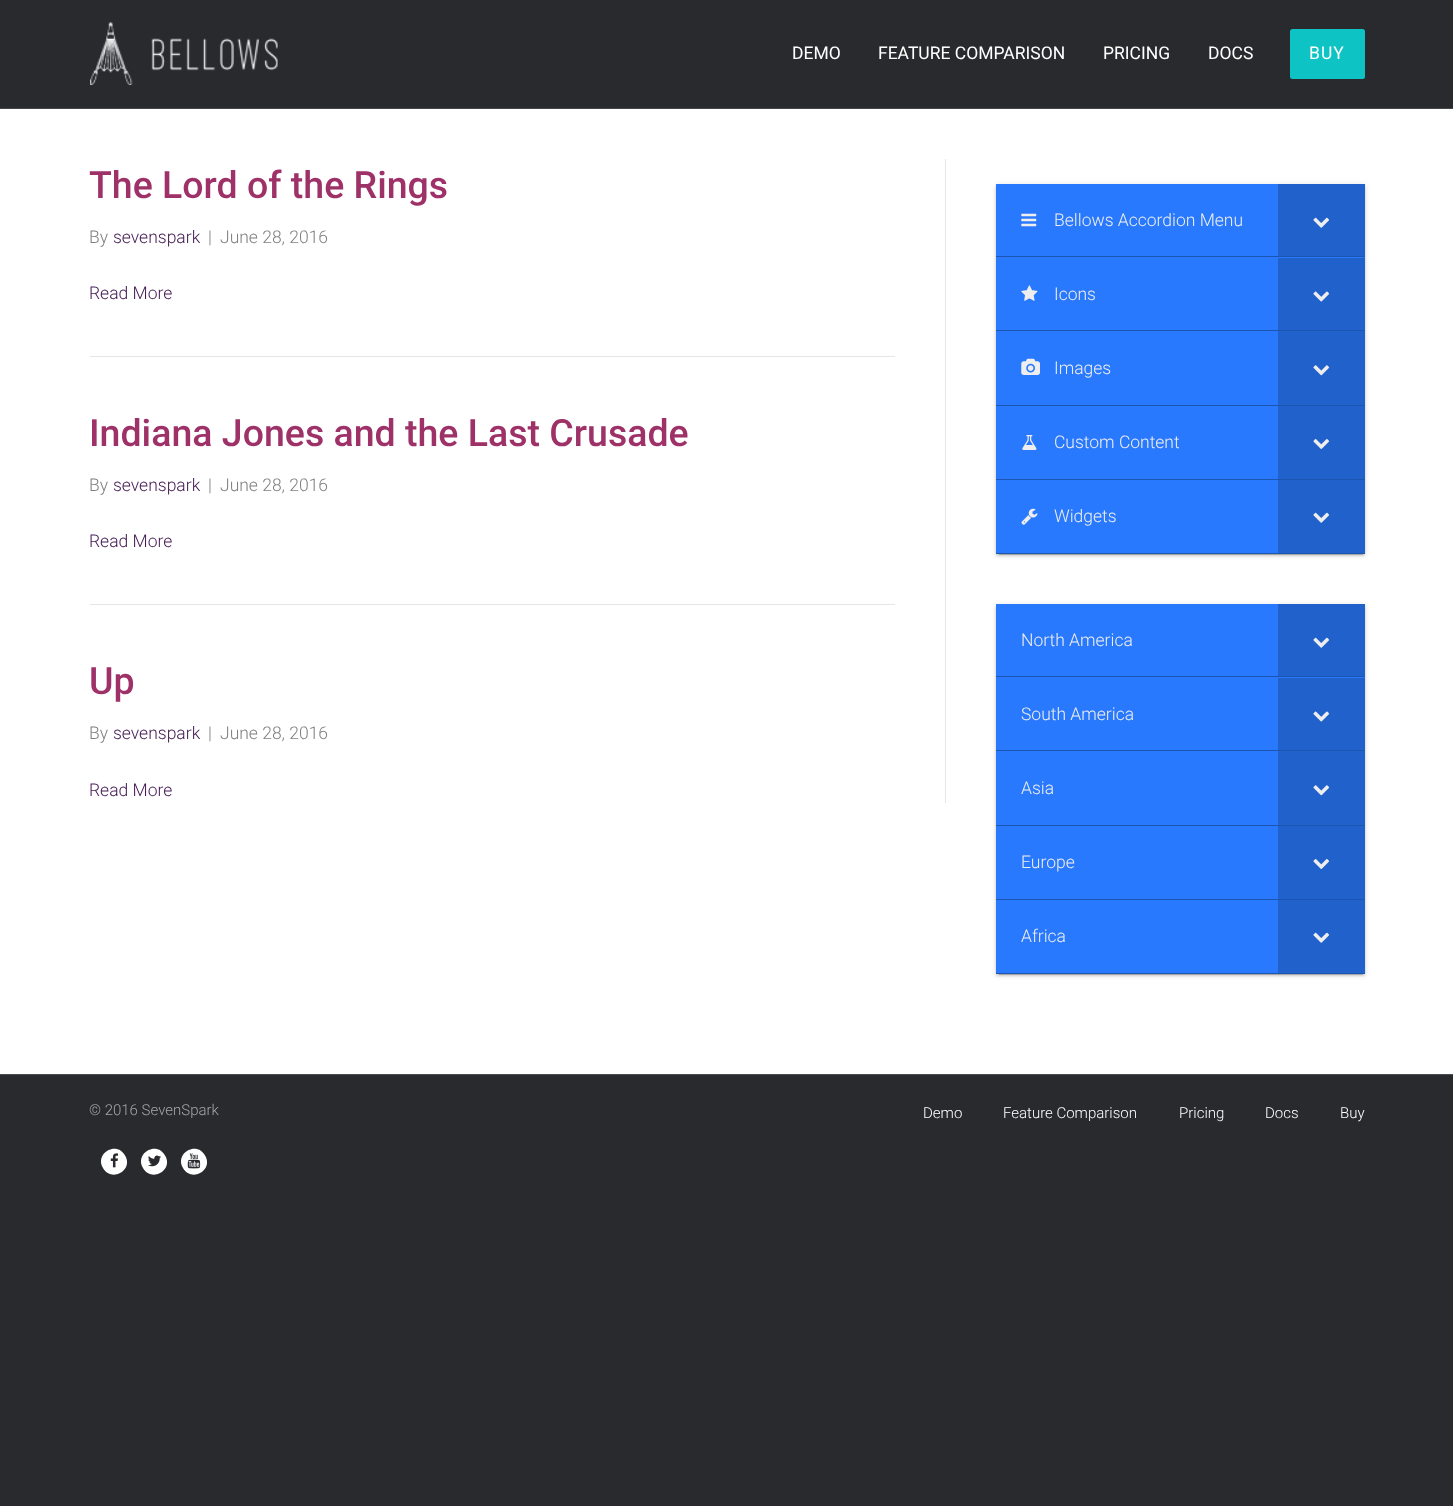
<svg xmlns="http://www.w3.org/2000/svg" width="1453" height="1506">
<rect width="100%" height="100%" fill="#282a2e"/>
<rect y="108" width="1453" height="1" fill="#444649"/>
<image x="90" y="22" width="188" height="63" href="media/1.png"/>
<text x="792" y="59" style="font-family:Roboto;font-size:17.5px;fill:#fff">DEMO</text>
<text x="878" y="59" style="font-family:Roboto;font-size:17.5px;fill:#fff">FEATURE COMPARISON</text>
<text x="1103" y="59" style="font-family:Roboto;font-size:17.5px;fill:#fff">PRICING</text>
<text x="1208" y="59" style="font-family:Roboto;font-size:17.5px;fill:#fff">DOCS</text>
<rect x="1290" y="29" width="75" height="50" rx="2.5" fill="#0dc3c3"/>
<text x="1309" y="59" style="font-family:Roboto;font-size:17.5px;letter-spacing:1px;fill:#fff">BUY</text>
<rect y="109" width="1453" height="965" fill="#fff"/>
<rect x="945" y="159" width="1" height="644" fill="#e6e6e6"/>
<rect x="90" y="356" width="805" height="1" fill="#e6e6e6"/>
<text x="89" y="198" style="font-family:Roboto;font-size:37.5px;font-weight:500;fill:#9e3167">The Lord of the Rings</text>
<text x="89" y="243" style="font-family:Roboto;font-size:17.5px;font-weight:300;fill:#808080">By</text>
<text x="113" y="243" style="font-family:Roboto;font-size:17.5px;font-weight:300;fill:#411751">sevenspark</text>
<text x="208" y="243" style="font-family:Roboto;font-size:17.5px;font-weight:300;fill:#808080">|</text>
<text x="220" y="243" style="font-family:Roboto;font-size:17.5px;font-weight:300;fill:#808080">June 28, 2016</text>
<text x="89" y="299" style="font-family:Roboto;font-size:17.5px;font-weight:300;fill:#411751">Read More</text>
<rect x="90" y="604" width="805" height="1" fill="#e6e6e6"/>
<text x="89" y="446" style="font-family:Roboto;font-size:37.5px;font-weight:500;fill:#9e3167">Indiana Jones and the Last Crusade</text>
<text x="89" y="491" style="font-family:Roboto;font-size:17.5px;font-weight:300;fill:#808080">By</text>
<text x="113" y="491" style="font-family:Roboto;font-size:17.5px;font-weight:300;fill:#411751">sevenspark</text>
<text x="208" y="491" style="font-family:Roboto;font-size:17.5px;font-weight:300;fill:#808080">|</text>
<text x="220" y="491" style="font-family:Roboto;font-size:17.5px;font-weight:300;fill:#808080">June 28, 2016</text>
<text x="89" y="547" style="font-family:Roboto;font-size:17.5px;font-weight:300;fill:#411751">Read More</text>
<text x="89" y="694" style="font-family:Roboto;font-size:37.5px;font-weight:500;fill:#9e3167">Up</text>
<text x="89" y="739" style="font-family:Roboto;font-size:17.5px;font-weight:300;fill:#808080">By</text>
<text x="113" y="739" style="font-family:Roboto;font-size:17.5px;font-weight:300;fill:#411751">sevenspark</text>
<text x="208" y="739" style="font-family:Roboto;font-size:17.5px;font-weight:300;fill:#808080">|</text>
<text x="220" y="739" style="font-family:Roboto;font-size:17.5px;font-weight:300;fill:#808080">June 28, 2016</text>
<text x="89" y="796" style="font-family:Roboto;font-size:17.5px;font-weight:300;fill:#411751">Read More</text>
<rect x="996" y="185" width="369" height="370" fill="#0000001f" filter="blur(3px)"/>
<rect x="999" y="190" width="364" height="365" fill="#00000033" filter="blur(0.5px)"/>
<rect x="996" y="186" width="369" height="370" fill="#00000024" filter="blur(1px)"/>
<rect x="996" y="184" width="369" height="369" fill="#2979ff"/>
<rect x="996" y="256" width="369" height="1" fill="#1d55b3"/>
<image x="1021" y="213" width="16" height="14" href="media/2.png"/>
<text x="1054" y="226" style="font-family:Roboto;font-size:17.5px;font-weight:300;fill:#eee">Bellows Accordion Menu</text>
<rect x="1278" y="184" width="87" height="72" fill="#2161cc"/>
<image x="1313" y="217" width="17" height="11" href="media/3.png"/>
<rect x="996" y="330" width="369" height="1" fill="#1d55b3"/>
<image x="1021" y="285" width="17" height="16" href="media/4.png"/>
<text x="1054" y="300" style="font-family:Roboto;font-size:17.5px;font-weight:300;fill:#eee">Icons</text>
<rect x="1278" y="258" width="87" height="72" fill="#2161cc"/>
<image x="1313" y="291" width="17" height="11" href="media/5.png"/>
<rect x="996" y="405" width="369" height="1" fill="#1d55b3"/>
<image x="1021" y="358" width="19" height="17" href="media/6.png"/>
<text x="1054" y="374" style="font-family:Roboto;font-size:17.5px;font-weight:300;fill:#eee">Images</text>
<rect x="1278" y="331" width="87" height="74" fill="#2161cc"/>
<image x="1313" y="365" width="17" height="11" href="media/7.png"/>
<rect x="996" y="479" width="369" height="1" fill="#1d55b3"/>
<image x="1022" y="435" width="15" height="15" href="media/8.png"/>
<text x="1054" y="448" style="font-family:Roboto;font-size:17.5px;font-weight:300;fill:#eee">Custom Content</text>
<rect x="1278" y="406" width="87" height="73" fill="#2161cc"/>
<image x="1313" y="439" width="17" height="10" href="media/9.png"/>
<rect x="996" y="553" width="369" height="1" fill="#1d55b3"/>
<image x="1021" y="508" width="17" height="17" href="media/10.png"/>
<text x="1054" y="522" style="font-family:Roboto;font-size:17.5px;font-weight:300;fill:#eee">Widgets</text>
<rect x="1278" y="480" width="87" height="73" fill="#2161cc"/>
<image x="1313" y="512" width="17" height="11" href="media/3.png"/>
<rect x="996" y="605" width="369" height="370" fill="#0000001f" filter="blur(3px)"/>
<rect x="999" y="610" width="364" height="365" fill="#00000033" filter="blur(0.5px)"/>
<rect x="996" y="606" width="369" height="370" fill="#00000024" filter="blur(1px)"/>
<rect x="996" y="604" width="369" height="369" fill="#2979ff"/>
<rect x="996" y="676" width="369" height="1" fill="#1d55b3"/>
<text x="1021" y="646" style="font-family:Roboto;font-size:17.5px;font-weight:300;fill:#eee">North America</text>
<rect x="1278" y="604" width="87" height="72" fill="#2161cc"/>
<image x="1313" y="637" width="17" height="11" href="media/3.png"/>
<rect x="996" y="750" width="369" height="1" fill="#1d55b3"/>
<text x="1021" y="720" style="font-family:Roboto;font-size:17.5px;font-weight:300;fill:#eee">South America</text>
<rect x="1278" y="678" width="87" height="72" fill="#2161cc"/>
<image x="1313" y="711" width="17" height="11" href="media/5.png"/>
<rect x="996" y="825" width="369" height="1" fill="#1d55b3"/>
<text x="1021" y="794" style="font-family:Roboto;font-size:17.5px;font-weight:300;fill:#eee">Asia</text>
<rect x="1278" y="751" width="87" height="74" fill="#2161cc"/>
<image x="1313" y="785" width="17" height="11" href="media/7.png"/>
<rect x="996" y="899" width="369" height="1" fill="#1d55b3"/>
<text x="1021" y="868" style="font-family:Roboto;font-size:17.5px;font-weight:300;fill:#eee">Europe</text>
<rect x="1278" y="826" width="87" height="73" fill="#2161cc"/>
<image x="1313" y="859" width="17" height="10" href="media/9.png"/>
<rect x="996" y="973" width="369" height="1" fill="#1d55b3"/>
<text x="1021" y="942" style="font-family:Roboto;font-size:17.5px;font-weight:300;fill:#eee">Africa</text>
<rect x="1278" y="900" width="87" height="73" fill="#2161cc"/>
<image x="1313" y="932" width="17" height="11" href="media/3.png"/>
<rect y="1074" width="1453" height="1" fill="#474a51"/>
<text x="89" y="1115" style="font-family:Roboto;font-size:15px;font-weight:300;fill:#a6a6a6">© 2016 SevenSpark</text>
<path d="M125 1155.5c9 14.5-13.5 27.5-22 12.5c-8.5-14.5 13.5-27.5 22-12.5z" fill="#fff"/>
<image x="110" y="1153" width="9" height="15" href="media/11.png"/>
<path d="M165 1155.5c9 14.5-13.5 27.5-22 12.5c-8.5-14.5 13.5-27.5 22-12.5z" fill="#fff"/>
<image x="148" y="1155" width="13" height="12" href="media/12.png"/>
<path d="M205 1155.5c9 14.5-13.5 27.5-22 12.5c-8.5-14.5 13.5-27.5 22-12.5z" fill="#fff"/>
<image x="187" y="1153" width="14" height="16" href="media/13.png"/>
<text x="923" y="1118" style="font-family:Roboto;font-size:15px;font-weight:300;fill:#fff">Demo</text>
<text x="1003" y="1118" style="font-family:Roboto;font-size:15px;font-weight:300;fill:#fff">Feature Comparison</text>
<text x="1179" y="1118" style="font-family:Roboto;font-size:15px;font-weight:300;fill:#fff">Pricing</text>
<text x="1265" y="1118" style="font-family:Roboto;font-size:15px;font-weight:300;fill:#fff">Docs</text>
<text x="1340" y="1118" style="font-family:Roboto;font-size:15px;font-weight:300;fill:#fff">Buy</text>
</svg>
